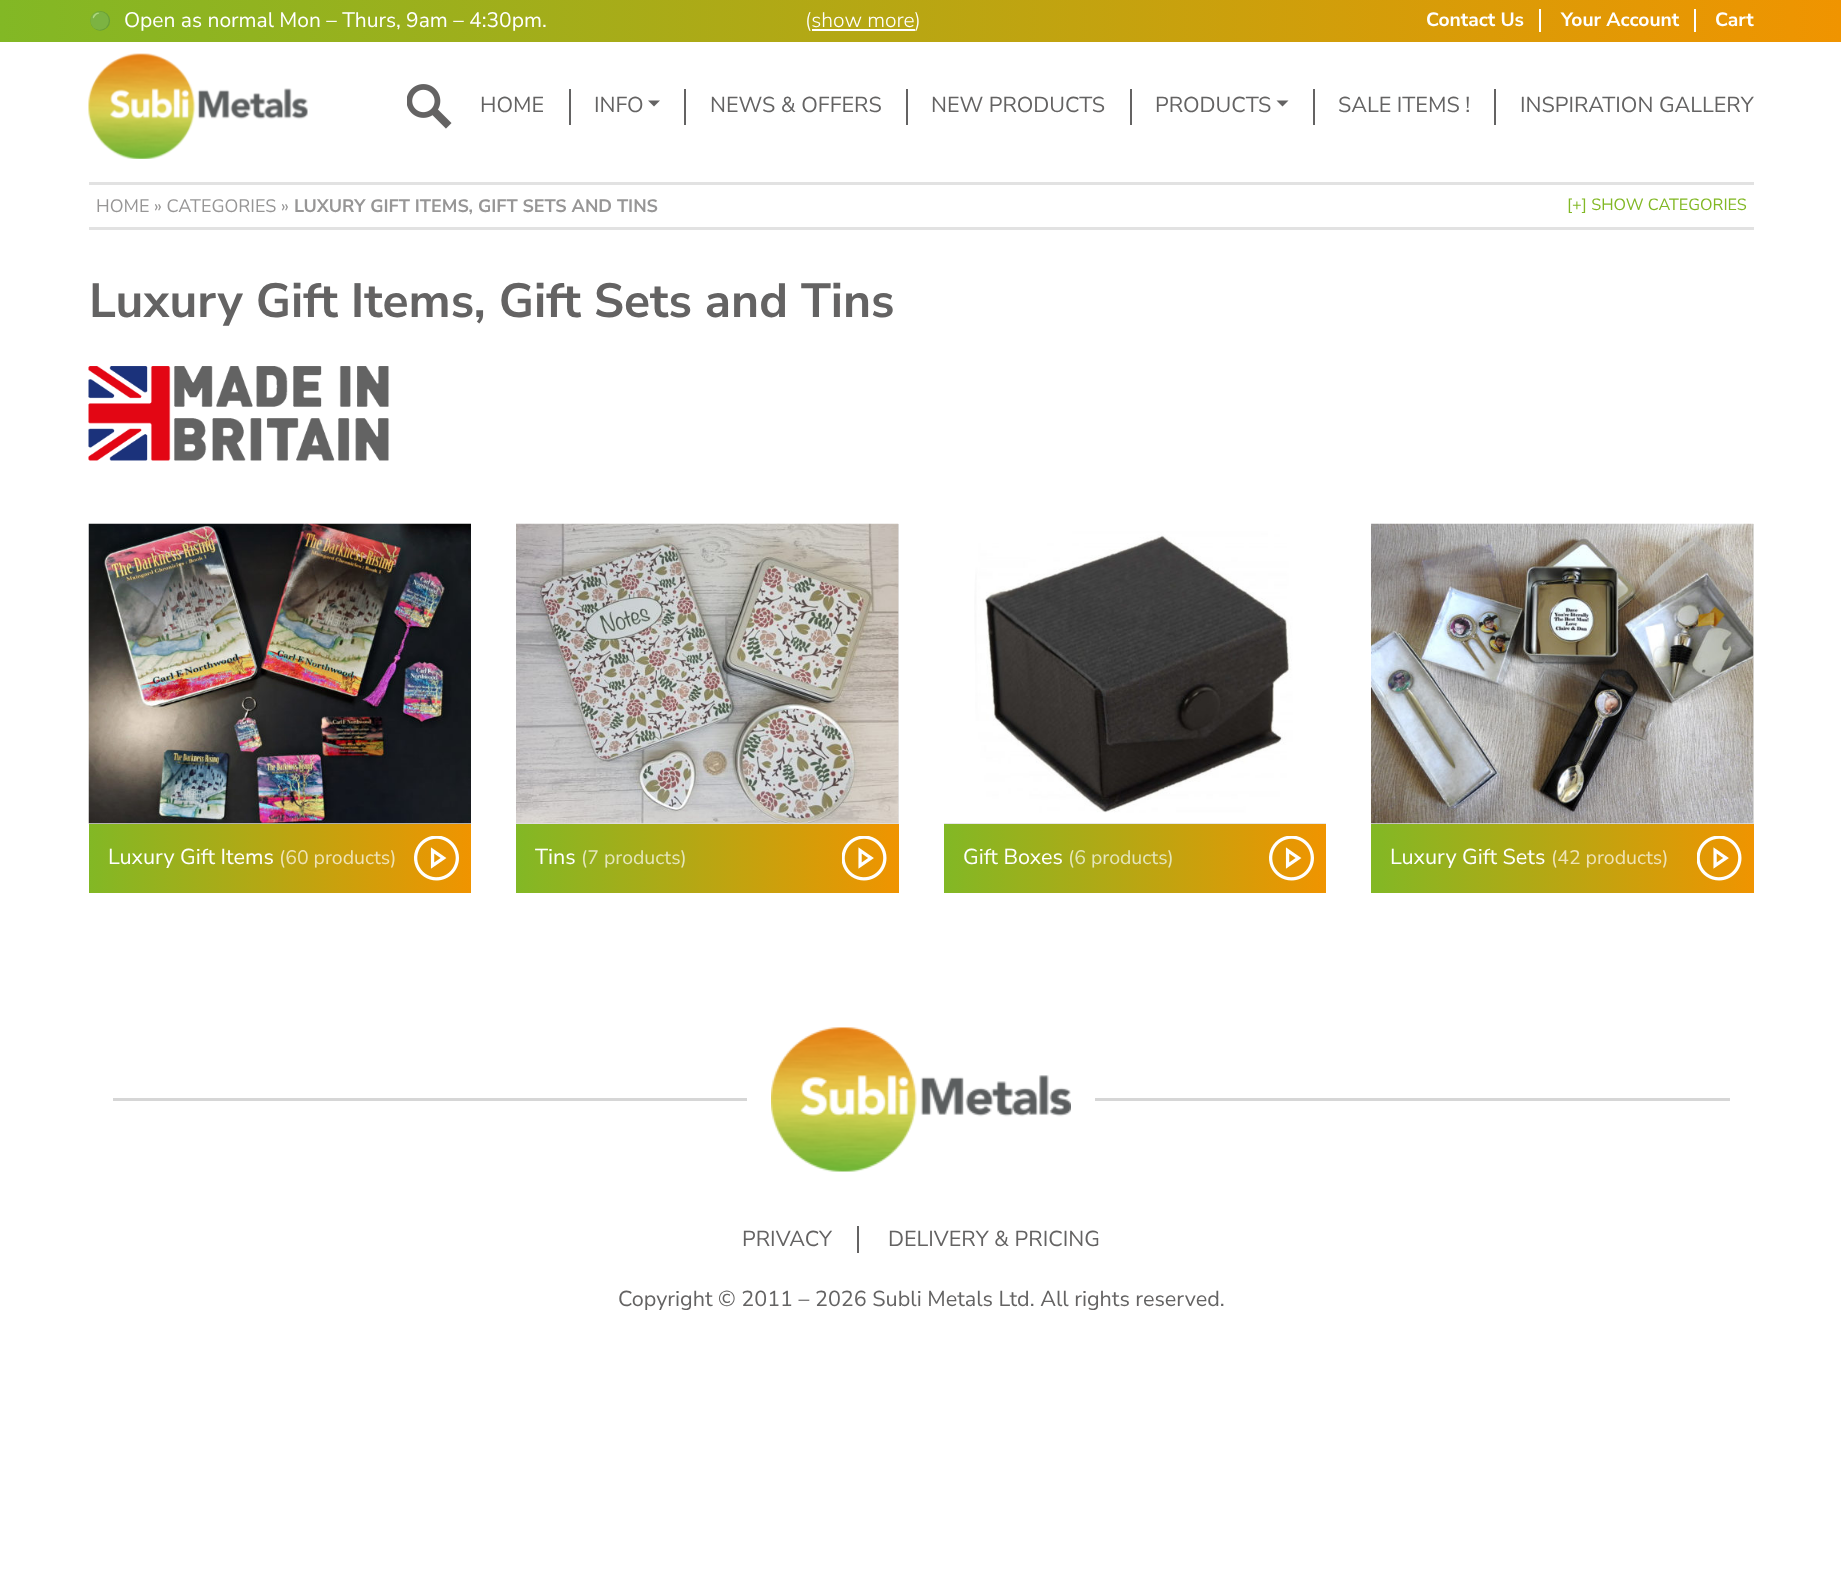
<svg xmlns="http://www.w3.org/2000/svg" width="1841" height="1572">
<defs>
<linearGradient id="g1" gradientUnits="userSpaceOnUse" x1="0" y1="21" x2="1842" y2="21"><stop offset="0" stop-color="#82b825"/><stop offset="1" stop-color="#f09400"/></linearGradient>
<clipPath id="clip1"><rect x="89" y="8" width="832" height="27"/></clipPath>
<linearGradient id="g2" gradientUnits="userSpaceOnUse" x1="89" y1="858" x2="471" y2="858"><stop offset="0" stop-color="#82b825"/><stop offset="1" stop-color="#f09400"/></linearGradient>
<linearGradient id="g3" gradientUnits="userSpaceOnUse" x1="516" y1="858" x2="899" y2="858"><stop offset="0" stop-color="#82b825"/><stop offset="1" stop-color="#f09400"/></linearGradient>
<linearGradient id="g4" gradientUnits="userSpaceOnUse" x1="944" y1="858" x2="1326" y2="858"><stop offset="0" stop-color="#82b825"/><stop offset="1" stop-color="#f09400"/></linearGradient>
<linearGradient id="g5" gradientUnits="userSpaceOnUse" x1="1371" y1="858" x2="1754" y2="858"><stop offset="0" stop-color="#82b825"/><stop offset="1" stop-color="#f09400"/></linearGradient>
</defs>
<rect width="100%" height="100%" fill="#fff"/>
<rect width="1841" height="42" fill="url(#g1)"/>
<g clip-path="url(#clip1)">
<text x="89" y="27" style="font-family:Noto Color Emoji;font-size:18px;fill:#fff">🟢</text>
</g>
<text x="124" y="27" style="font-family:Nunito Sans;font-size:21px;fill:#fff">Open as normal Mon – Thurs, 9am – 4:30pm.</text>
<text x="805" y="27" style="font-family:Nunito Sans;font-size:21px;font-weight:300;fill:#fff">(show more)</text>
<rect x="812" y="29" width="103" height="2" fill="#fff"/>
<rect x="1539" y="9" width="2" height="23" fill="#fff"/>
<text x="1426" y="26" style="font-family:Nunito Sans;font-size:19.25px;font-weight:bold;fill:#fff">Contact Us</text>
<rect x="1694" y="9" width="2" height="23" fill="#fff"/>
<text x="1561" y="26" style="font-family:Nunito Sans;font-size:19.25px;font-weight:bold;fill:#fff">Your Account</text>
<text x="1715" y="26" style="font-family:Nunito Sans;font-size:19.25px;font-weight:bold;fill:#fff">Cart</text>
<image x="88" y="53" width="220" height="106" href="media/1.png"/>
<image x="407" y="84" width="45" height="45" href="media/2.png"/>
<rect x="569" y="89" width="2" height="36" fill="#646363"/>
<text x="480" y="112" style="font-family:Nunito Sans;font-size:21.6px;fill:#646363">HOME</text>
<rect x="684" y="89" width="2" height="36" fill="#646363"/>
<text x="594" y="112" style="font-family:Nunito Sans;font-size:21.6px;fill:#646363">INFO</text>
<path d="M648 100.5h12l-6 6z" fill="#646363"/>
<rect x="906" y="89" width="2" height="36" fill="#646363"/>
<text x="710" y="112" style="font-family:Nunito Sans;font-size:21.6px;fill:#646363">NEWS &amp; OFFERS</text>
<rect x="1130" y="89" width="2" height="36" fill="#646363"/>
<text x="931" y="112" style="font-family:Nunito Sans;font-size:21.6px;fill:#646363">NEW PRODUCTS</text>
<rect x="1313" y="89" width="2" height="36" fill="#646363"/>
<text x="1155" y="112" style="font-family:Nunito Sans;font-size:21.6px;fill:#646363">PRODUCTS</text>
<path d="M1276.5 100.5h12l-6 6z" fill="#646363"/>
<rect x="1494" y="89" width="2" height="36" fill="#646363"/>
<text x="1338" y="112" style="font-family:Nunito Sans;font-size:21.6px;fill:#646363">SALE ITEMS !</text>
<text x="1520" y="112" style="font-family:Nunito Sans;font-size:21.6px;fill:#646363">INSPIRATION GALLERY</text>
<rect x="89" y="182" width="1665" height="3" fill="#e2e2e2"/>
<rect x="89" y="227" width="1665" height="3" fill="#e2e2e2"/>
<text x="96" y="212" style="font-family:Nunito Sans;font-size:18px;fill:#979696">HOME » CATEGORIES »</text>
<text x="294" y="212" style="font-family:Nunito Sans;font-size:18px;font-weight:bold;fill:#979696">LUXURY GIFT ITEMS, GIFT SETS AND TINS</text>
<text x="1567" y="210" style="font-family:Nunito Sans;font-size:16.25px;fill:#82b825">[+] SHOW CATEGORIES</text>
<text x="89" y="317" style="font-family:Nunito Sans;font-size:48px;font-weight:bold;fill:#646363">Luxury Gift Items, Gift Sets and Tins</text>
<image x="88" y="366" width="301" height="95" href="media/3.png"/>
<rect x="89" y="823" width="382" height="1" fill="#e2e2e2"/>
<image x="88" y="523" width="383" height="301" href="media/4.png"/>
<rect x="89" y="824" width="382" height="69" fill="url(#g2)"/>
<text x="108" y="864" style="font-family:Nunito Sans;font-size:21.6px;fill:#fff">Luxury Gift Items</text>
<text x="279" y="864" style="font-family:Nunito Sans;font-size:19.5px;fill:#efe3b6">(60 products)</text>
<image x="414" y="836" width="45" height="45" href="media/5.png"/>
<rect x="516" y="524" width="383" height="300" fill="#e2e2e2"/>
<image x="516" y="523" width="383" height="301" href="media/6.png"/>
<rect x="516" y="824" width="383" height="69" fill="url(#g3)"/>
<text x="535" y="864" style="font-family:Nunito Sans;font-size:21.6px;fill:#fff">Tins</text>
<text x="581" y="864" style="font-family:Nunito Sans;font-size:19.5px;fill:#e4e6ba">(7 products)</text>
<image x="842" y="836" width="45" height="45" href="media/7.png"/>
<rect x="944" y="823" width="382" height="1" fill="#e2e2e2"/>
<image x="944" y="524" width="382" height="300" href="media/8.png"/>
<rect x="944" y="824" width="382" height="69" fill="url(#g4)"/>
<text x="963" y="864" style="font-family:Nunito Sans;font-size:21.6px;fill:#fff">Gift Boxes</text>
<text x="1068" y="864" style="font-family:Nunito Sans;font-size:19.5px;fill:#e4e6ba">(6 products)</text>
<image x="1269" y="836" width="45" height="45" href="media/5.png"/>
<rect x="1371" y="524" width="383" height="300" fill="#e2e2e2"/>
<image x="1371" y="523" width="383" height="301" href="media/9.png"/>
<rect x="1371" y="824" width="383" height="69" fill="url(#g5)"/>
<text x="1390" y="864" style="font-family:Nunito Sans;font-size:21.6px;fill:#fff">Luxury Gift Sets</text>
<text x="1551" y="864" style="font-family:Nunito Sans;font-size:19.5px;fill:#efe3b6">(42 products)</text>
<image x="1697" y="836" width="45" height="45" href="media/7.png"/>
<rect x="113" y="1098" width="634" height="3" fill="#d6d6d6"/>
<image x="771" y="1027" width="300" height="145" href="media/10.png"/>
<rect x="1095" y="1098" width="635" height="3" fill="#d6d6d6"/>
<rect x="857" y="1226" width="2" height="27" fill="#646363"/>
<text x="742" y="1246" style="font-family:Nunito Sans;font-size:21.6px;fill:#646363">PRIVACY</text>
<text x="888" y="1246" style="font-family:Nunito Sans;font-size:21.6px;fill:#646363">DELIVERY &amp; PRICING</text>
<text x="618" y="1306" style="font-family:Nunito Sans;font-size:21.6px;fill:#646363">Copyright © 2011 – 2026 Subli Metals Ltd. All rights reserved.</text>
</svg>
